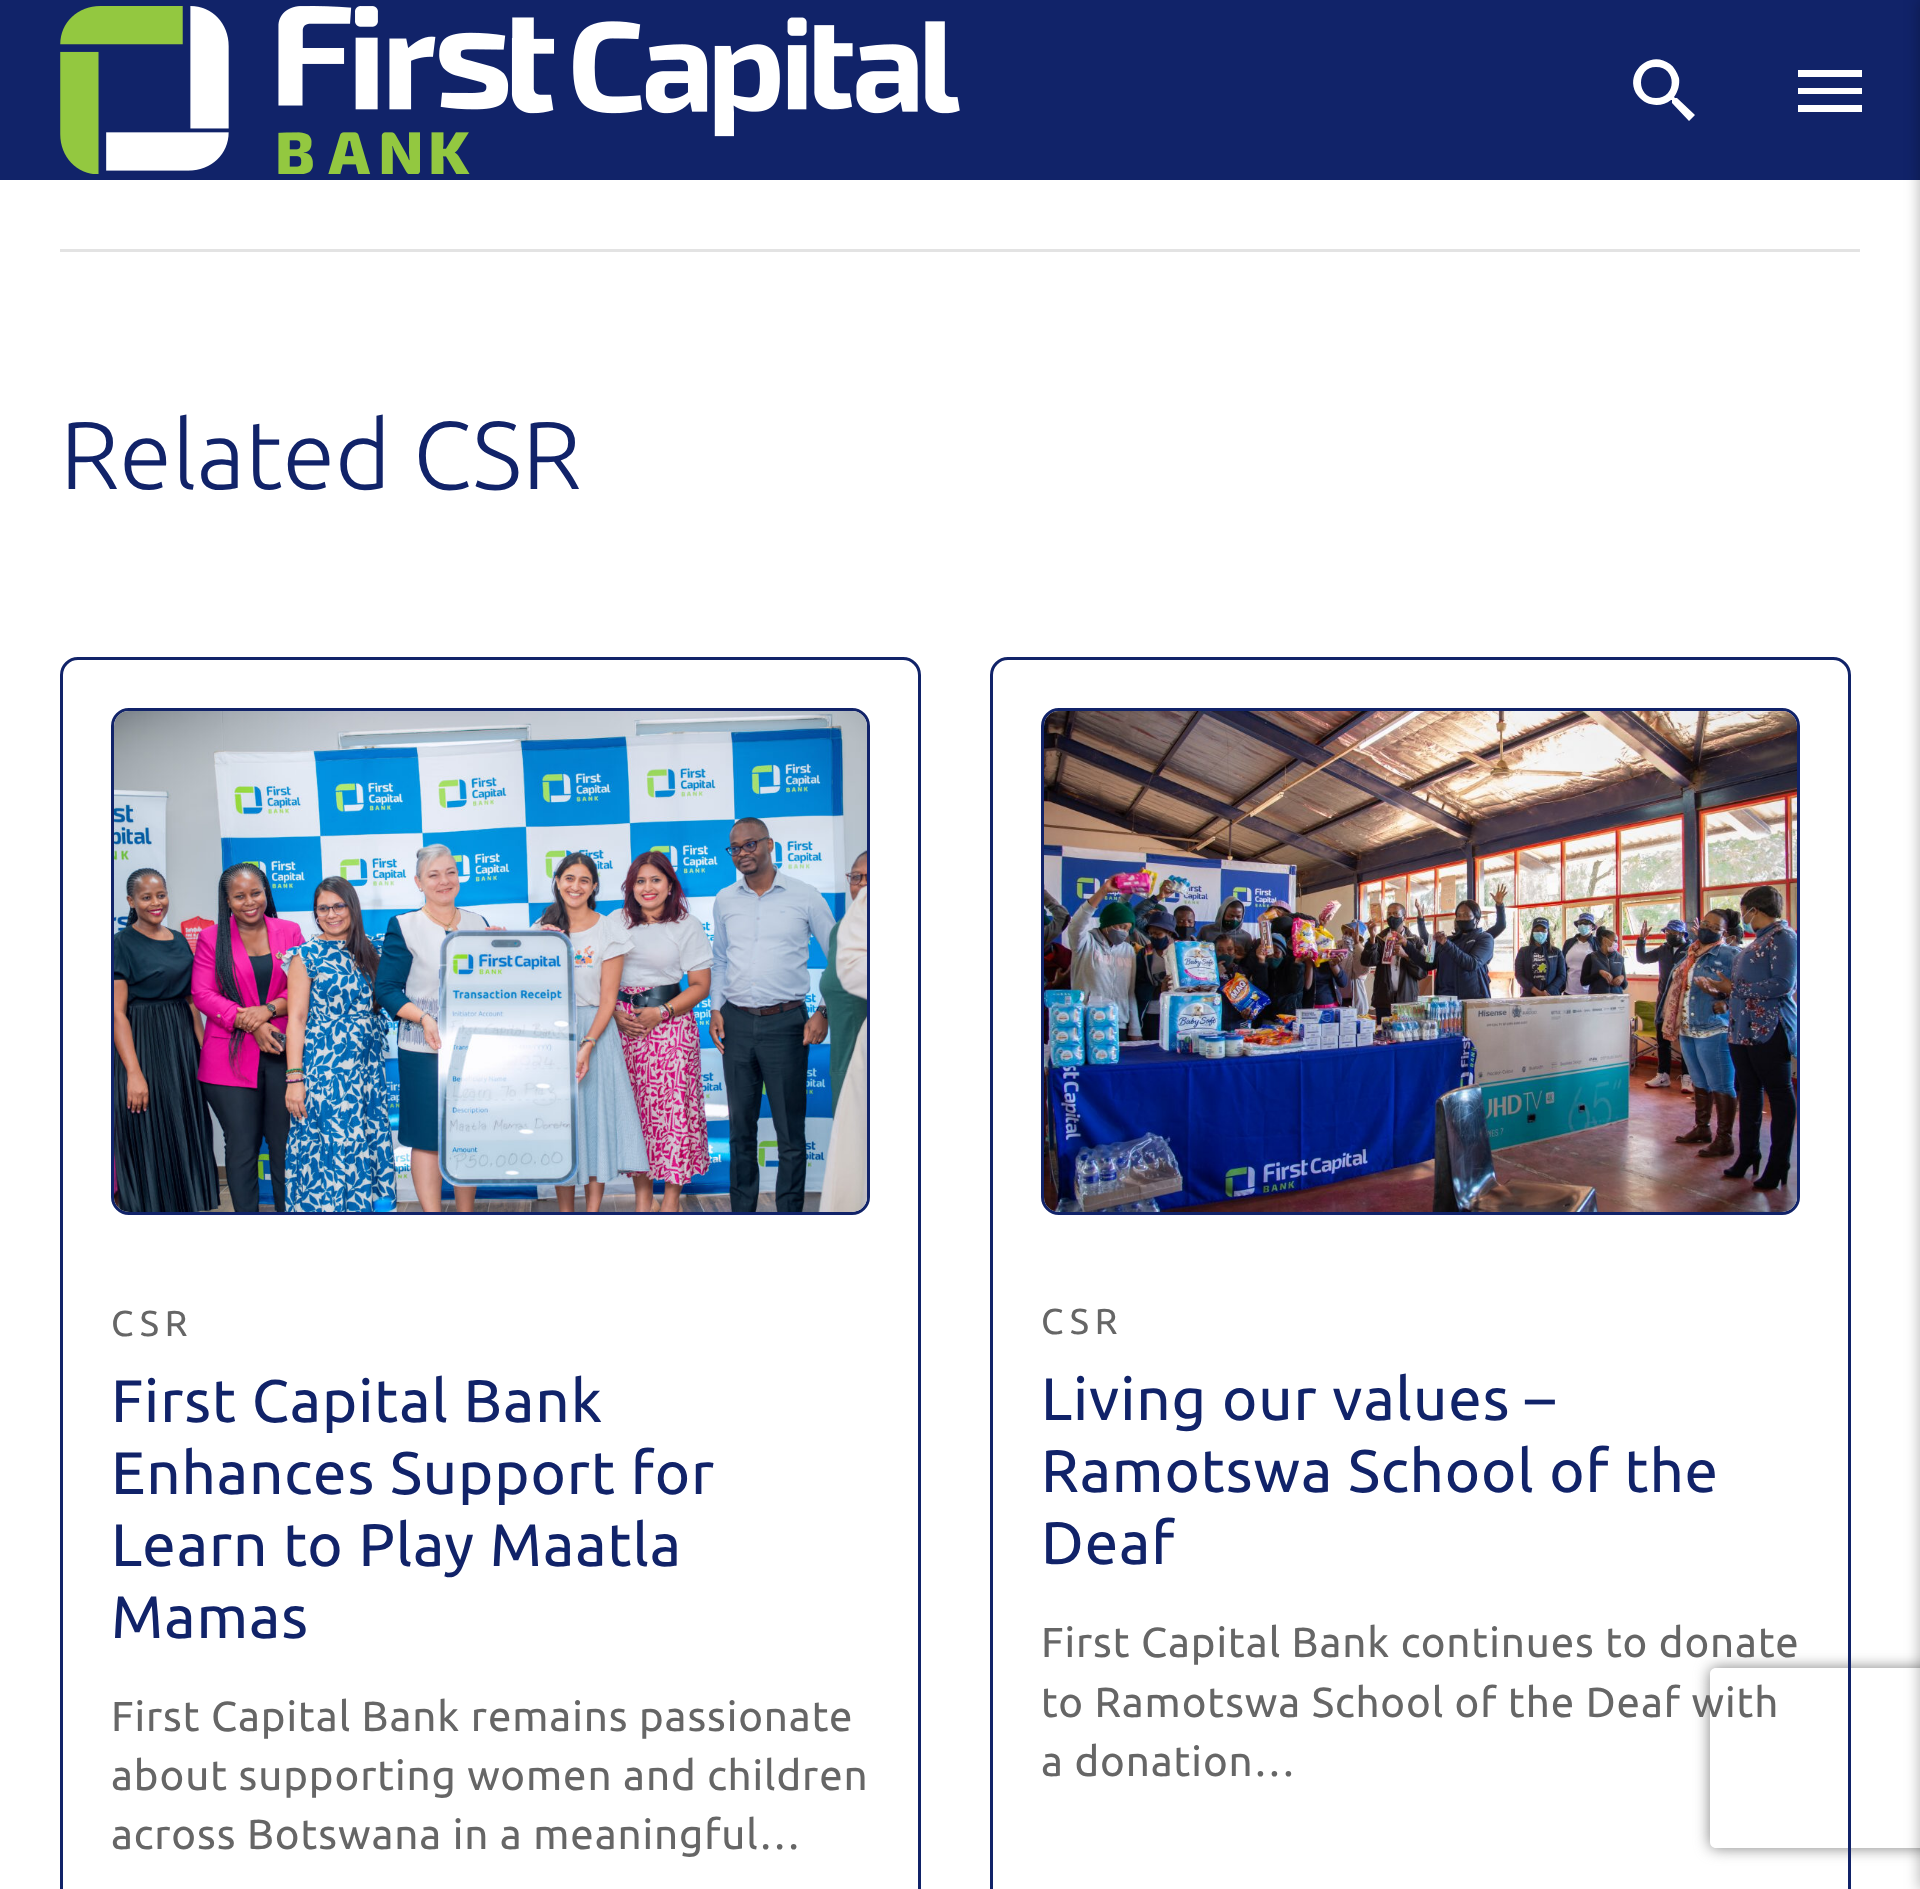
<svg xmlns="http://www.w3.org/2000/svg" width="1920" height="1889">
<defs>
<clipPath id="clip1"><path d="M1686 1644h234v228h-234zm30 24h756c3.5 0 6 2.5 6 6v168c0 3.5-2.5 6-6 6h-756c-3.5 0-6-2.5-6-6v-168c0-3.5 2.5-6 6-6z" clip-rule="evenodd"/></clipPath>
</defs>
<rect width="100%" height="100%" fill="#fff"/>
<rect width="1920" height="180" fill="#112369"/>
<image x="60" y="6" width="900" height="168" href="media/1.png"/>
<path d="M1656 98c21 0 21-31 0-31c-20 0-20 31 0 31zm21 0l18 17l-6 6l-17-18v-3h-1c-10 8-25 6-33-4c-16-21 11-48 32-32c4 3 7 8 9 14c1 6-1 14-5 19l1 1z" fill="#fff"/>
<path d="M1798 70h64v7h-64zm0 24v-6h64v6zm0 18v-7h64v7z" fill="#fff"/>
<rect x="60" y="249" width="1800" height="3" fill="#e3e3e3"/>
<text x="60" y="489" style="font-family:Ubuntu;font-size:96px;font-weight:300;fill:#112369">Related CSR</text>
<rect x="61.5" y="658.5" width="858" height="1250" rx="16.5" fill="none" stroke="#112369" stroke-width="3"/>
<rect x="112.5" y="709.5" width="756" height="504" rx="16.5" fill="none" stroke="#112369" stroke-width="3"/>
<image x="114" y="711" width="753" height="501" href="media/2.png"/>
<text x="111" y="1336" style="font-family:Ubuntu;font-size:36px;letter-spacing:6px;fill:#666">CSR</text>
<text x="111" y="1422" style="font-family:Ubuntu;font-size:60px;letter-spacing:0.9px;fill:#112369">First Capital Bank</text>
<text x="111" y="1494" style="font-family:Ubuntu;font-size:60px;letter-spacing:0.9px;fill:#112369">Enhances Support for</text>
<text x="111" y="1566" style="font-family:Ubuntu;font-size:60px;letter-spacing:0.9px;fill:#112369">Learn to Play Maatla</text>
<text x="111" y="1638" style="font-family:Ubuntu;font-size:60px;letter-spacing:0.9px;fill:#112369">Mamas</text>
<text x="111" y="1731" style="font-family:Ubuntu;font-size:42px;letter-spacing:0.9px;fill:#666">First Capital Bank remains passionate</text>
<text x="111" y="1790" style="font-family:Ubuntu;font-size:42px;letter-spacing:0.9px;fill:#666">about supporting women and children</text>
<text x="111" y="1849" style="font-family:Ubuntu;font-size:42px;letter-spacing:0.9px;fill:#666">across Botswana in a meaningful…</text>
<g clip-path="url(#clip1)">
<rect x="1710" y="1668" width="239" height="180" rx="6" fill="#808080" filter="blur(7.5px)"/>
</g>
<rect x="991.5" y="658.5" width="858" height="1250" rx="16.5" fill="none" stroke="#112369" stroke-width="3"/>
<rect x="1042.5" y="709.5" width="756" height="504" rx="16.5" fill="none" stroke="#112369" stroke-width="3"/>
<image x="1044" y="711" width="753" height="501" href="media/3.png"/>
<text x="1041" y="1334" style="font-family:Ubuntu;font-size:36px;letter-spacing:6px;fill:#666">CSR</text>
<text x="1041" y="1420" style="font-family:Ubuntu;font-size:60px;letter-spacing:0.9px;fill:#112369">Living our values –</text>
<text x="1041" y="1492" style="font-family:Ubuntu;font-size:60px;letter-spacing:0.9px;fill:#112369">Ramotswa School of the</text>
<text x="1041" y="1564" style="font-family:Ubuntu;font-size:60px;letter-spacing:0.9px;fill:#112369">Deaf</text>
<text x="1041" y="1657" style="font-family:Ubuntu;font-size:42px;letter-spacing:0.9px;fill:#666">First Capital Bank continues to donate</text>
<text x="1041" y="1717" style="font-family:Ubuntu;font-size:42px;letter-spacing:0.9px;fill:#666">to Ramotswa School of the Deaf with</text>
<text x="1041" y="1776" style="font-family:Ubuntu;font-size:42px;letter-spacing:0.9px;fill:#666">a donation…</text>
<rect x="1920" width="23" height="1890" fill="#0000004d" filter="blur(7.5px)"/>
</svg>
